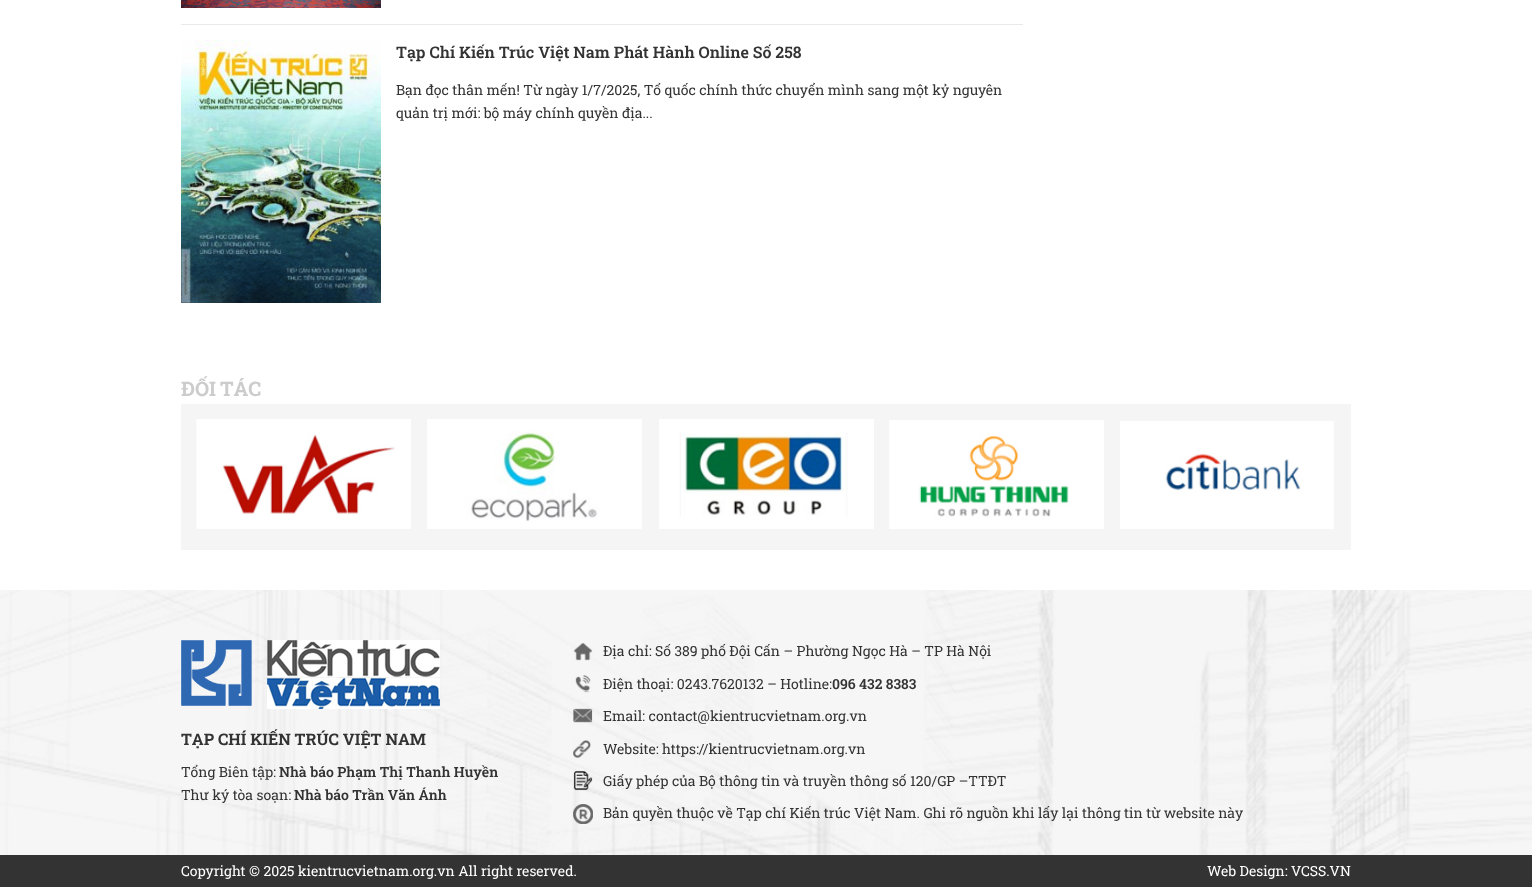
<svg xmlns="http://www.w3.org/2000/svg" width="1532" height="887">
<rect width="100%" height="100%" fill="#fff"/>
<rect x="181" y="24" width="842" height="1" fill="#e9e9e9"/>
<image x="181" y="0" width="200" height="8" href="media/1.png"/>
<image x="181" y="40" width="200" height="263" href="media/2.png"/>
<text x="396" y="58" style="font-family:Roboto Slab;font-size:16px;font-weight:600;fill:#333">Tạp Chí Kiến Trúc Việt Nam Phát Hành Online Số 258</text>
<text x="396" y="95" style="font-family:Roboto Slab;font-size:14px;fill:#333">Bạn đọc thân mến! Từ ngày 1/7/2025, Tổ quốc chính thức chuyển mình sang một kỷ nguyên</text>
<text x="396" y="118" style="font-family:Roboto Slab;font-size:14px;fill:#333">quản trị mới: bộ máy chính quyền địa...</text>
<text x="181" y="396" word-spacing="-1" style="font-family:Roboto Slab;font-size:20px;font-weight:bold;fill:#ccc">ĐỐI TÁC</text>
<rect x="181" y="404" width="1170" height="146" fill="#f5f5f5"/>
<image x="196" y="419" width="215" height="110" href="media/3.png"/>
<image x="427" y="419" width="215" height="110" href="media/4.png"/>
<image x="659" y="419" width="215" height="110" href="media/5.png"/>
<image x="889" y="420" width="215" height="109" href="media/6.png"/>
<image x="1120" y="421" width="214" height="108" href="media/7.png"/>
<rect y="590" width="1532" height="265" fill="#f5f5f5"/>
<image x="0" y="590" width="1532" height="265" href="media/8.png"/>
<image x="181" y="640" width="259" height="69" href="media/9.png"/>
<text x="181" y="745" style="font-family:Roboto Slab;font-size:16px;font-weight:bold;fill:#333">TẠP CHÍ KIẾN TRÚC VIỆT NAM</text>
<text x="181" y="777" style="font-family:Roboto Slab;font-size:14px;fill:#333">Tổng Biên tập:</text>
<text x="279" y="777" style="font-family:Roboto Slab;font-size:14px;font-weight:600;fill:#333">Nhà báo Phạm Thị Thanh Huyền</text>
<text x="181" y="800" style="font-family:Roboto Slab;font-size:14px;fill:#333">Thư ký tòa soạn:</text>
<text x="294" y="800" style="font-family:Roboto Slab;font-size:14px;font-weight:600;fill:#333">Nhà báo Trần Văn Ánh</text>
<image x="573" y="643" width="20" height="18" href="media/10.png"/>
<text x="603" y="656" style="font-family:Roboto Slab;font-size:14px;fill:#333">Địa chỉ: Số 389 phố Đội Cấn – Phường Ngọc Hà – TP Hà Nội</text>
<image x="575" y="675" width="16" height="18" href="media/11.png"/>
<text x="603" y="689" style="font-family:Roboto Slab;font-size:14px;fill:#333">Điện thoại: 0243.7620132 – Hotline:</text>
<text x="832" y="689" style="font-family:Roboto Slab;font-size:14px;font-weight:600;fill:#333">096 432 8383</text>
<image x="573" y="708" width="20" height="15" href="media/12.png"/>
<text x="603" y="721" style="font-family:Roboto Slab;font-size:14px;fill:#333">Email: contact@kientrucvietnam.org.vn</text>
<image x="573" y="740" width="18" height="19" href="media/13.png"/>
<text x="603" y="754" style="font-family:Roboto Slab;font-size:14px;fill:#333">Website: https://kientrucvietnam.org.vn</text>
<image x="573" y="771" width="20" height="20" href="media/14.png"/>
<text x="603" y="786" style="font-family:Roboto Slab;font-size:14px;fill:#333">Giấy phép của Bộ thông tin và truyền thông số 120/GP –TTĐT</text>
<image x="573" y="804" width="20" height="20" href="media/15.png"/>
<text x="603" y="818" style="font-family:Roboto Slab;font-size:14px;fill:#333">Bản quyền thuộc về Tạp chí Kiến trúc Việt Nam. Ghi rõ nguồn khi lấy lại thông tin từ website này</text>
<rect y="855" width="1532" height="32" fill="#333"/>
<text x="181" y="876" style="font-family:Roboto Slab;font-size:14px;fill:#fff">Copyright © 2025 kientrucvietnam.org.vn All right reserved.</text>
<text x="1207" y="876" style="font-family:Roboto Slab;font-size:14px;fill:#fff">Web Design: VCSS.VN</text>
</svg>
